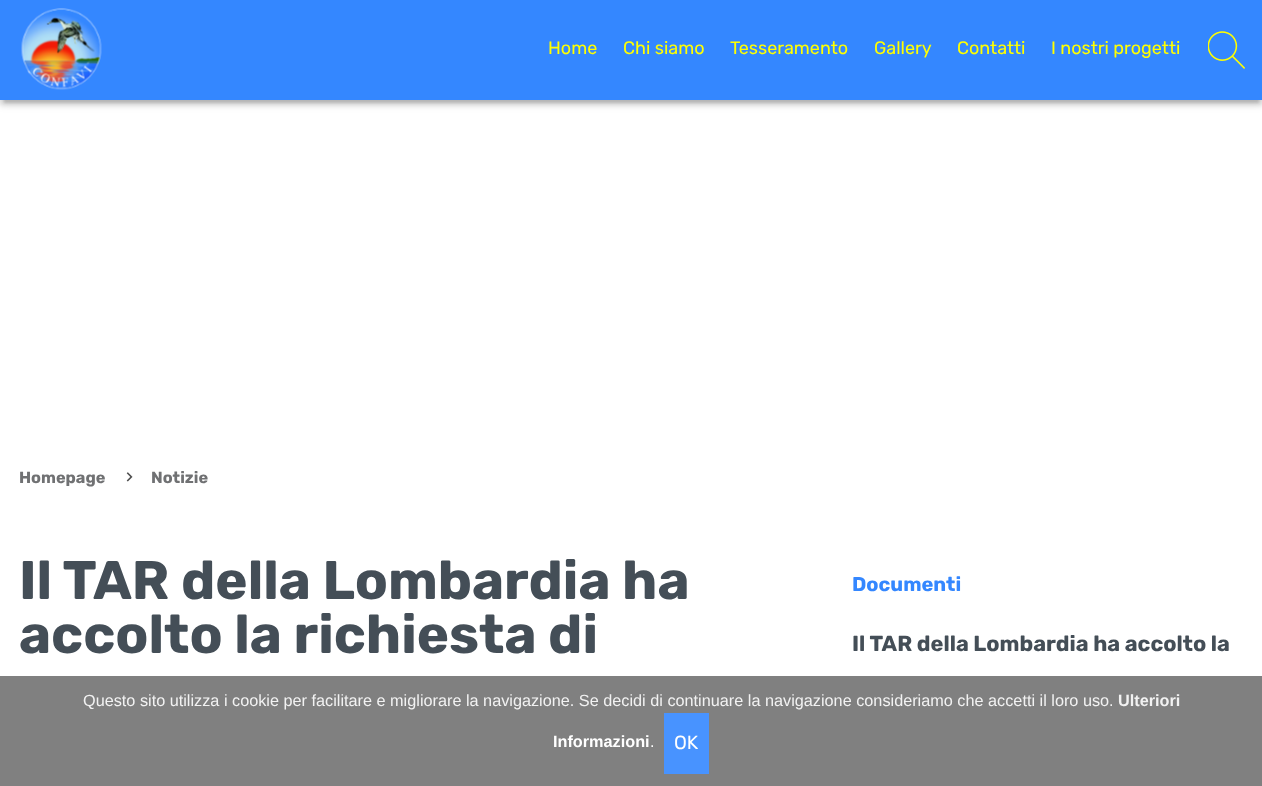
<svg xmlns="http://www.w3.org/2000/svg" width="1262" height="786">
<rect width="100%" height="100%" fill="#fff"/>
<rect y="4" width="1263" height="100" fill="#00000026" filter="blur(4px)"/>
<rect x="4" y="10" width="1255" height="93" fill="#0000001a" filter="blur(1px)"/>
<rect y="5" width="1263" height="100" fill="#0000001a" filter="blur(2.5px)"/>
<rect width="1262" height="100" fill="#3487ff"/>
<image x="21" y="8" width="81" height="82" href="media/1.png"/>
<text x="548" y="54" style="font-family:Rubik;font-size:18px;fill:#ff0">Home</text>
<text x="623" y="54" style="font-family:Rubik;font-size:18px;fill:#ff0">Chi siamo</text>
<text x="730" y="54" style="font-family:Rubik;font-size:18px;fill:#ff0">Tesseramento</text>
<text x="874" y="54" style="font-family:Rubik;font-size:18px;fill:#ff0">Gallery</text>
<text x="957" y="54" style="font-family:Rubik;font-size:18px;fill:#ff0">Contatti</text>
<text x="1051" y="54" style="font-family:Rubik;font-size:18px;fill:#ff0">I nostri progetti</text>
<image x="1208" y="31" width="37" height="38" href="media/2.png"/>
<text x="19" y="483" style="font-family:Rubik;font-size:16.25px;font-weight:bold;fill:#707173">Homepage</text>
<image x="126" y="472" width="7" height="10" href="media/3.png"/>
<text x="151" y="483" style="font-family:Rubik;font-size:16.25px;font-weight:bold;fill:#707173">Notizie</text>
<text x="19" y="599" style="font-family:Rubik;font-size:54.4px;font-weight:bold;fill:#444e57">Il TAR della Lombardia ha</text>
<text x="19" y="653" style="font-family:Rubik;font-size:54.4px;font-weight:bold;fill:#444e57">accolto la richiesta di</text>
<text x="852" y="591" style="font-family:Rubik;font-size:20px;font-weight:bold;fill:#3487ff">Documenti</text>
<text x="852" y="651" style="font-family:Rubik;font-size:21.75px;font-weight:bold;fill:#444e57">Il TAR della Lombardia ha accolto la</text>
<rect y="676" width="1262" height="110" fill="#727272e6"/>
<text x="83" y="706" style="font-family:Liberation Sans;font-size:16.25px;fill:#f2f2f2">Questo sito utilizza i cookie per facilitare e migliorare la navigazione. Se decidi di continuare la navigazione consideriamo che accetti il loro uso.</text>
<text x="1118" y="706" style="font-family:Liberation Sans;font-size:16.25px;font-weight:bold;fill:#f2f2f2">Ulteriori</text>
<text x="553" y="747" style="font-family:Liberation Sans;font-size:16.25px;font-weight:bold;fill:#fff">Informazioni</text>
<text x="650" y="747" style="font-family:Liberation Sans;font-size:16.25px;fill:#fff">.</text>
<rect x="664" y="713" width="45" height="61" fill="#4893ff"/>
<text x="674" y="749" style="font-family:Rubik;font-size:19px;fill:#fff">OK</text>
</svg>
